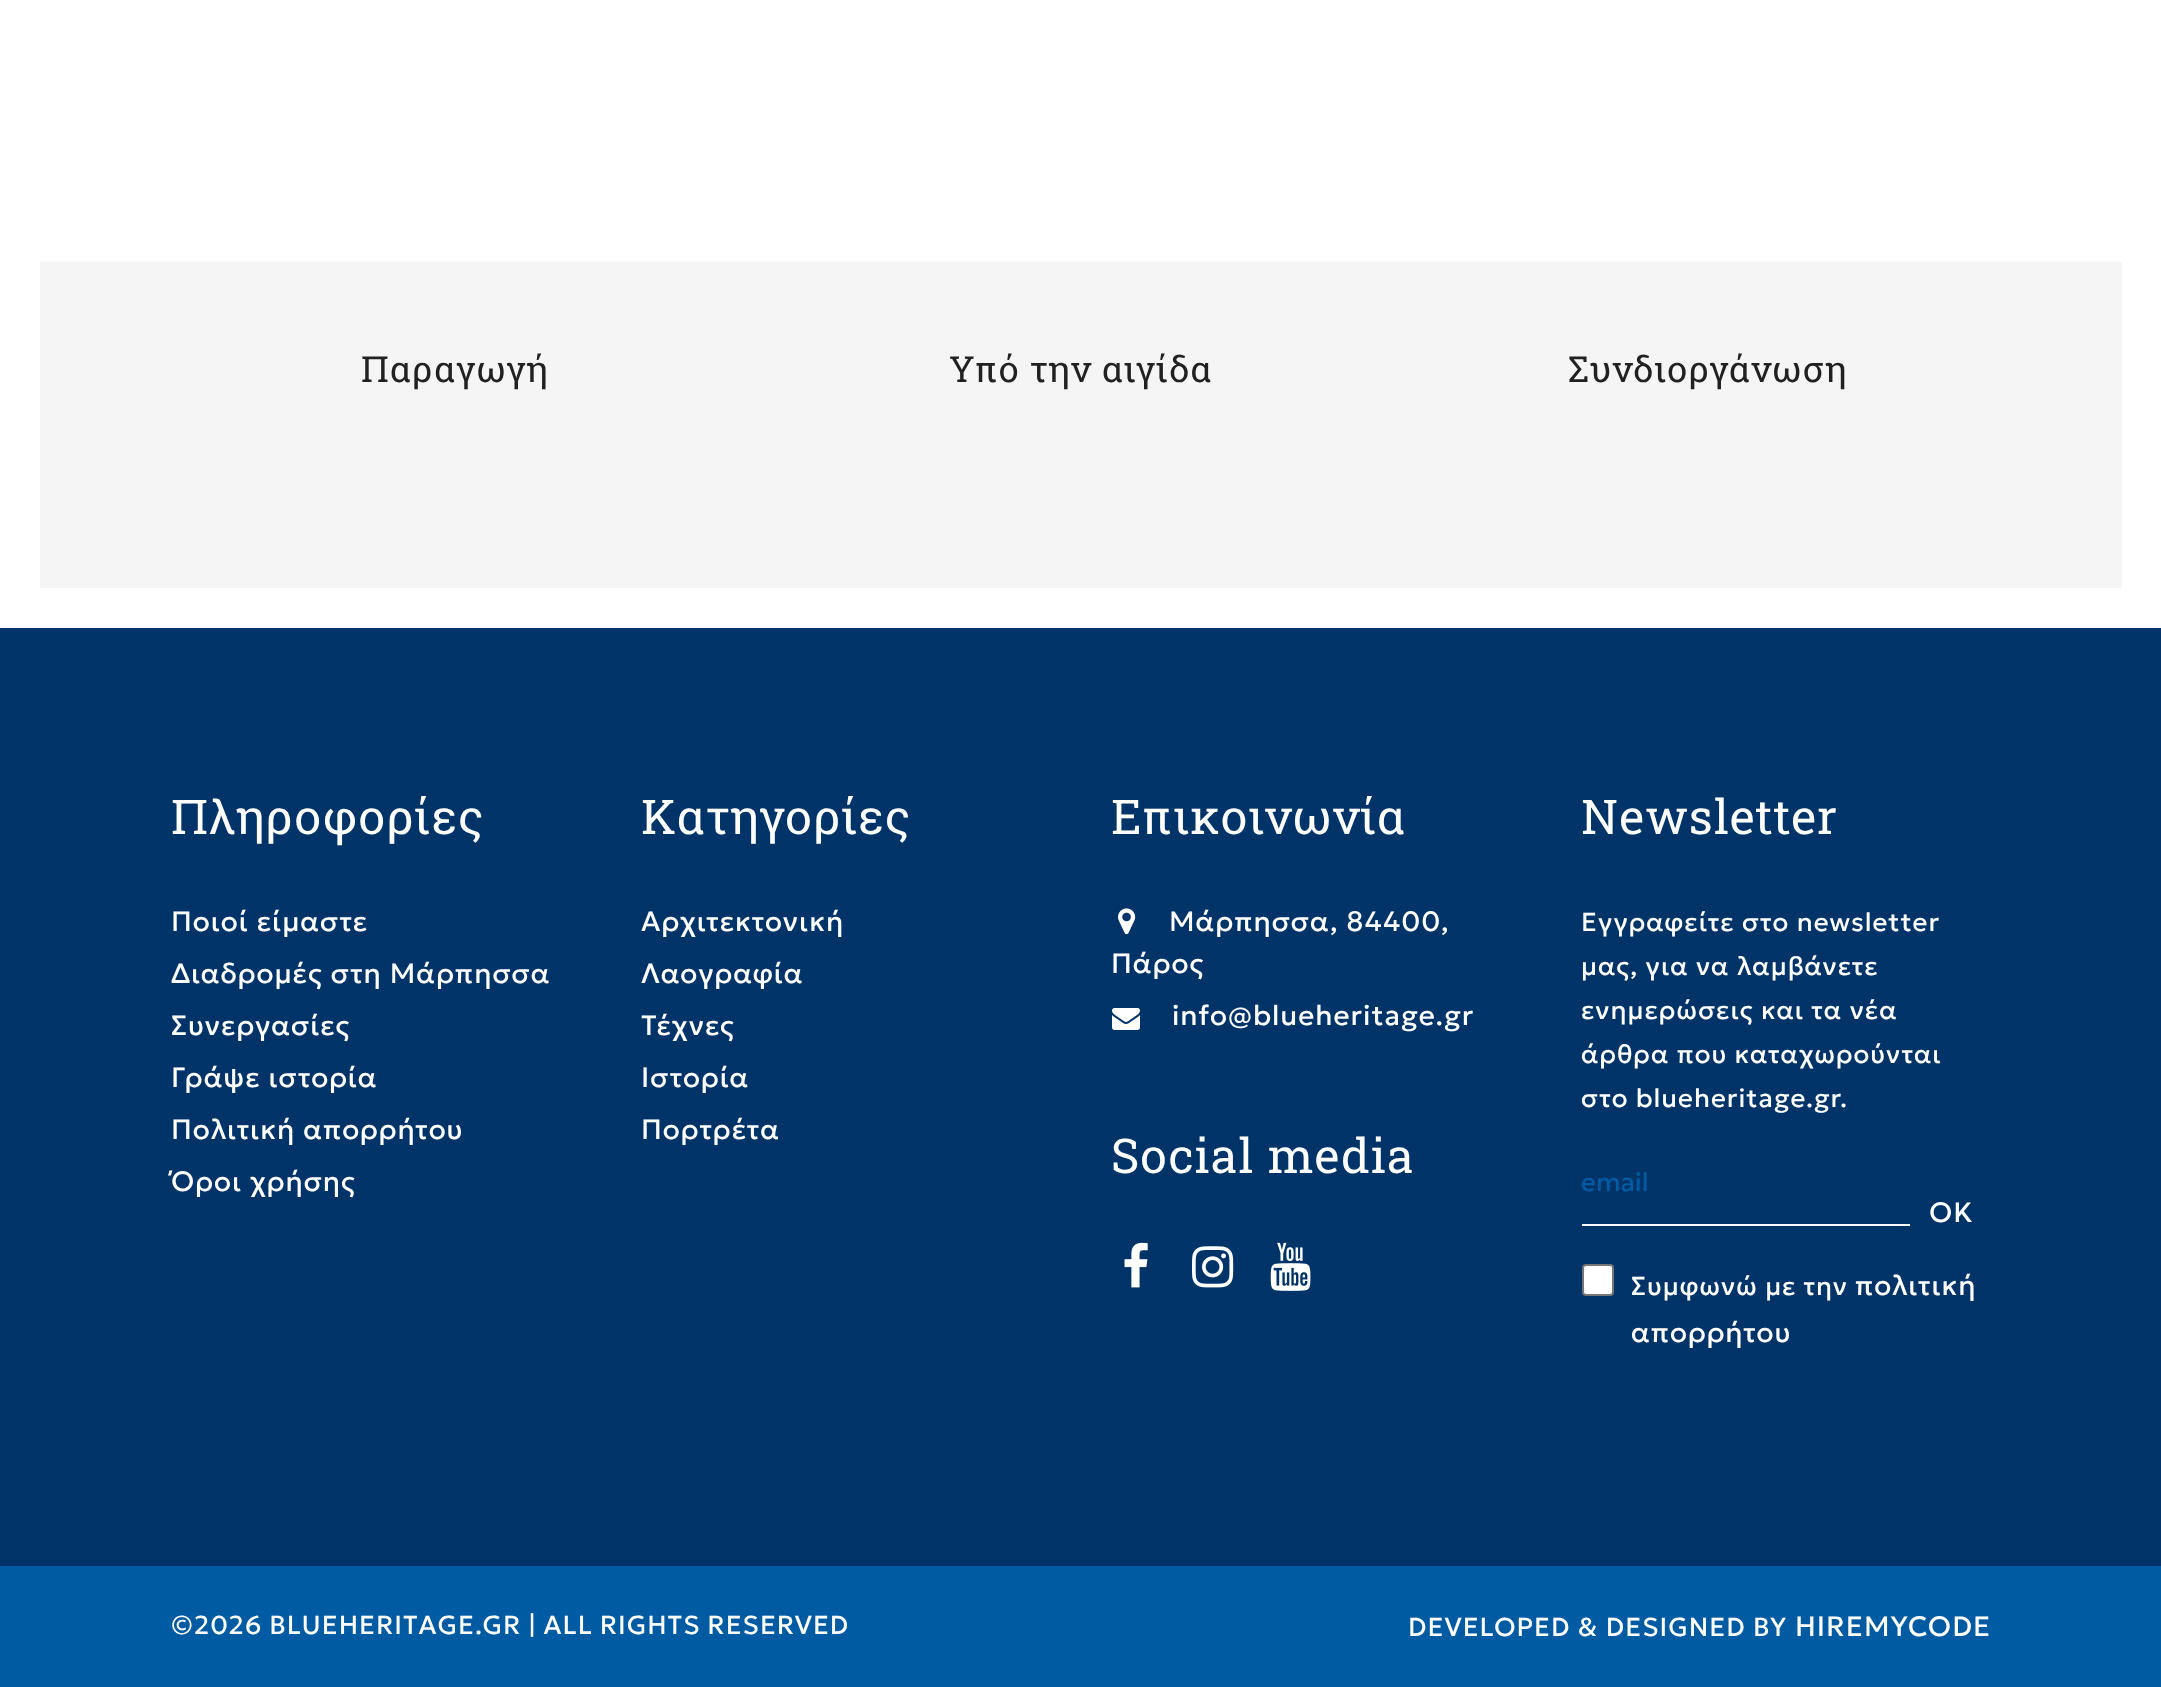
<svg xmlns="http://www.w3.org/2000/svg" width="2161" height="1687">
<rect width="100%" height="100%" fill="#fff"/>
<rect y="628" width="2161" height="938" fill="#003468"/>
<rect x="40" y="262" width="2082" height="326" fill="#f5f5f5"/>
<text x="361" y="382" style="font-family:Roboto Slab;font-size:36px;letter-spacing:1px;fill:#212121">Παραγωγή</text>
<text x="949" y="382" style="font-family:Roboto Slab;font-size:36px;letter-spacing:1px;fill:#212121">Υπό την αιγίδα</text>
<text x="1568" y="382" style="font-family:Roboto Slab;font-size:36px;letter-spacing:1px;fill:#212121">Συνδιοργάνωση</text>
<text x="171" y="834" style="font-family:Roboto Slab;font-size:48px;letter-spacing:1px;fill:#fff">Πληροφορίες</text>
<text x="171" y="931" style="font-family:Geologica;font-size:28px;letter-spacing:1px;fill:#fff">Ποιοί είμαστε</text>
<text x="171" y="983" style="font-family:Geologica;font-size:28px;letter-spacing:1px;fill:#fff">Διαδρομές στη Μάρπησσα</text>
<text x="171" y="1035" style="font-family:Geologica;font-size:28px;letter-spacing:1px;fill:#fff">Συνεργασίες</text>
<text x="171" y="1087" style="font-family:Geologica;font-size:28px;letter-spacing:1px;fill:#fff">Γράψε ιστορία</text>
<text x="171" y="1139" style="font-family:Geologica;font-size:28px;letter-spacing:1px;fill:#fff">Πολιτική απορρήτου</text>
<text x="171" y="1191" style="font-family:Geologica;font-size:28px;letter-spacing:1px;fill:#fff">Όροι χρήσης</text>
<text x="641" y="834" style="font-family:Roboto Slab;font-size:48px;letter-spacing:1px;fill:#fff">Κατηγορίες</text>
<text x="641" y="931" style="font-family:Geologica;font-size:28px;letter-spacing:1px;fill:#fff">Αρχιτεκτονική</text>
<text x="641" y="983" style="font-family:Geologica;font-size:28px;letter-spacing:1px;fill:#fff">Λαογραφία</text>
<text x="641" y="1035" style="font-family:Geologica;font-size:28px;letter-spacing:1px;fill:#fff">Τέχνες</text>
<text x="641" y="1087" style="font-family:Geologica;font-size:28px;letter-spacing:1px;fill:#fff">Ιστορία</text>
<text x="641" y="1139" style="font-family:Geologica;font-size:28px;letter-spacing:1px;fill:#fff">Πορτρέτα</text>
<text x="1111" y="834" style="font-family:Roboto Slab;font-size:48px;letter-spacing:1px;fill:#fff">Επικοινωνία</text>
<image x="1118" y="908" width="18" height="27" href="media/1.png"/>
<text x="1169" y="931" style="font-family:Geologica;font-size:28px;letter-spacing:1px;fill:#fff">Μάρπησσα, 84400,</text>
<text x="1111" y="973" style="font-family:Geologica;font-size:28px;letter-spacing:1px;fill:#fff">Πάρος</text>
<image x="1112" y="1008" width="28" height="22" href="media/2.png"/>
<text x="1172" y="1025" style="font-family:Geologica;font-size:28px;letter-spacing:1px;fill:#fff">info@blueheritage.gr</text>
<text x="1111" y="1173" style="font-family:Roboto Slab;font-size:48px;letter-spacing:1px;fill:#fff">Social media</text>
<image x="1124" y="1242" width="24" height="46" href="media/3.png"/>
<image x="1192" y="1246" width="42" height="42" href="media/4.png"/>
<image x="1270" y="1242" width="41" height="49" href="media/5.png"/>
<text x="1581" y="834" style="font-family:Roboto Slab;font-size:48px;letter-spacing:1px;fill:#fff">Newsletter</text>
<text x="1581" y="931" style="font-family:Geologica;font-size:26px;letter-spacing:1px;fill:#fff">Εγγραφείτε στο newsletter</text>
<text x="1581" y="975" style="font-family:Geologica;font-size:26px;letter-spacing:1px;fill:#fff">μας, για να λαμβάνετε</text>
<text x="1581" y="1019" style="font-family:Geologica;font-size:26px;letter-spacing:1px;fill:#fff">ενημερώσεις και τα νέα</text>
<text x="1581" y="1063" style="font-family:Geologica;font-size:26px;letter-spacing:1px;fill:#fff">άρθρα που καταχωρούνται</text>
<text x="1581" y="1107" style="font-family:Geologica;font-size:26px;letter-spacing:1px;fill:#fff">στο blueheritage.gr.</text>
<rect x="1582" y="1224" width="328" height="2" fill="#fff"/>
<text x="1581" y="1191" style="font-family:Geologica;font-size:26px;fill:#005ba2">email</text>
<text x="1929" y="1222" style="font-family:Geologica;font-size:28px;letter-spacing:1px;fill:#fff">OK</text>
<rect x="1583" y="1265" width="30" height="30" rx="3" fill="#fff" stroke="#767676" stroke-width="2"/>
<text x="1631" y="1295" style="font-family:Geologica;font-size:26px;letter-spacing:1px;fill:#fff">Συμφωνώ με την</text>
<text x="1855" y="1295" style="font-family:Geologica;font-size:28px;letter-spacing:1px;fill:#fff">πολιτική</text>
<text x="1631" y="1342" style="font-family:Geologica;font-size:28px;letter-spacing:1px;fill:#fff">απορρήτου</text>
<rect y="1566" width="2161" height="121" fill="#005ba2"/>
<text x="171" y="1634" word-spacing="-0.5" style="font-family:Geologica;font-size:26px;letter-spacing:1px;fill:#fff">©2026 BLUEHERITAGE.GR | ALL RIGHTS RESERVED</text>
<text x="1408" y="1636" style="font-family:Geologica;font-size:26px;letter-spacing:1px;fill:#fff">DEVELOPED &amp; DESIGNED BY</text>
<text x="1795" y="1636" style="font-family:Geologica;font-size:28px;letter-spacing:1px;fill:#fff">HIREMYCODE</text>
</svg>
